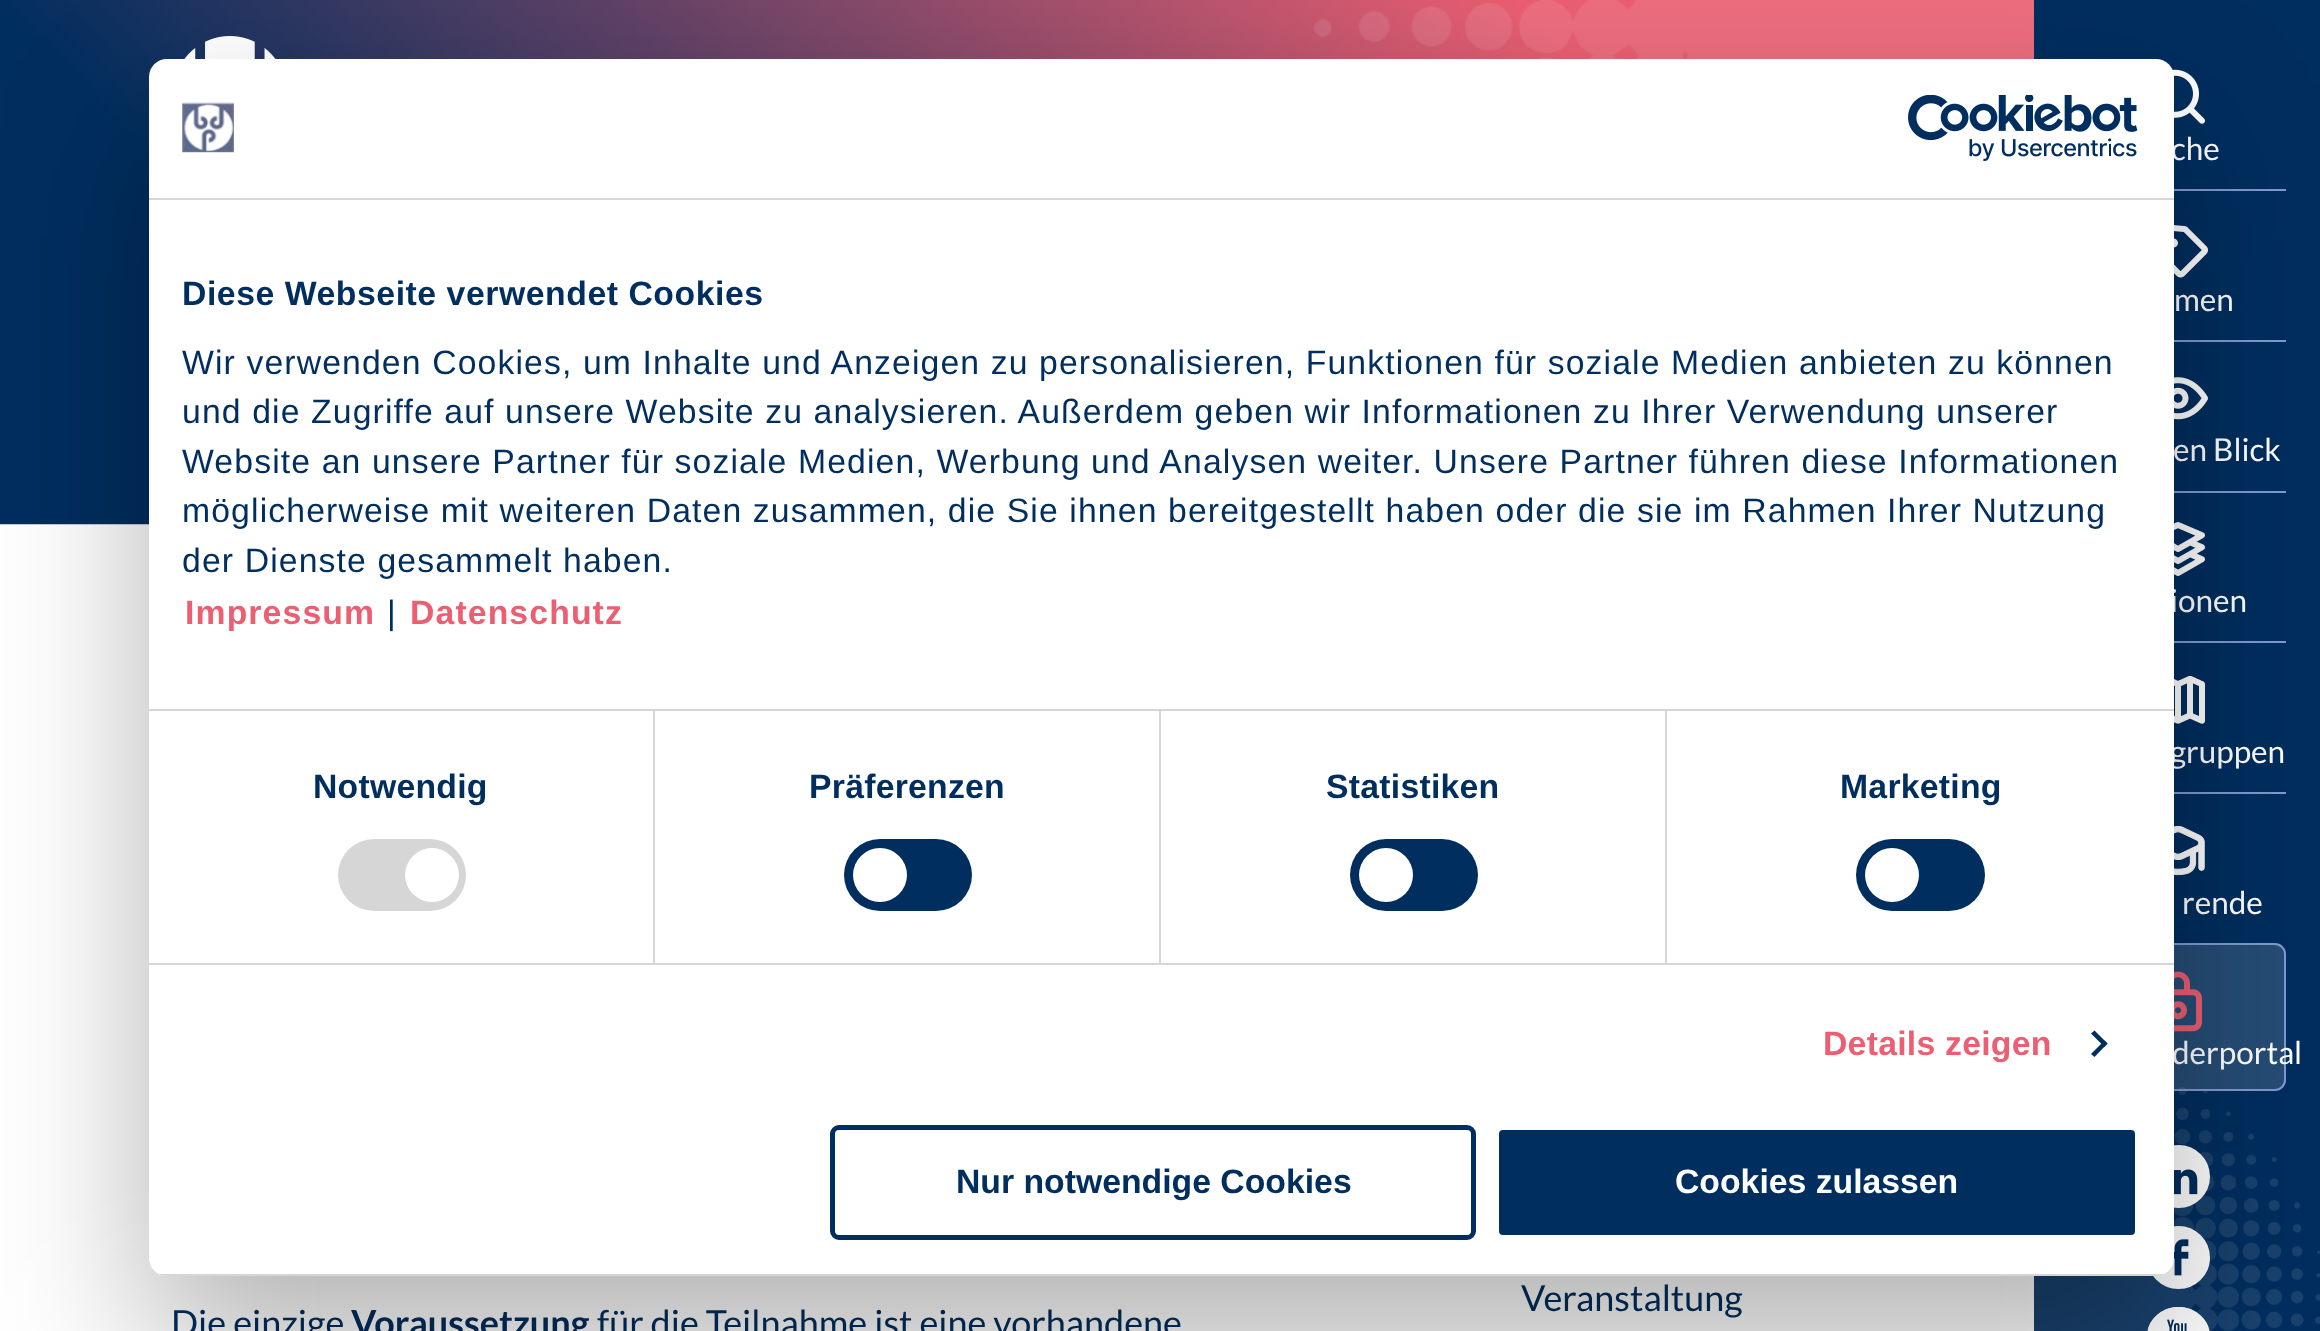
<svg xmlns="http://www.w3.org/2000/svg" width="2320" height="1331">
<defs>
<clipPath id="clip1"><rect x="149" y="59" width="2025" height="1217" rx="18"/></clipPath>
</defs>
<rect width="100%" height="100%" fill="#fff"/>
<rect x="2034" width="286" height="1331" fill="#002e5f"/>
<image x="2034" y="1087" width="286" height="244" href="media/1.png"/>
<image x="2172" y="69" width="33" height="55" href="media/2.png"/>
<text x="2171" y="160" style="font-family:Lato;font-size:31.5px;fill:#fff">che</text>
<rect x="2174" y="189" width="112" height="2" fill="#809ad0"/>
<image x="2174" y="225" width="34" height="53" href="media/3.png"/>
<text x="2174" y="311" style="font-family:Lato;font-size:31.5px;fill:#fff">men</text>
<rect x="2174" y="340" width="112" height="2" fill="#809ad0"/>
<image x="2174" y="377" width="34" height="43" href="media/4.png"/>
<text x="2173" y="461" style="font-family:Lato;font-size:31.5px;fill:#fff">en Blick</text>
<rect x="2174" y="491" width="112" height="2" fill="#809ad0"/>
<image x="2174" y="522" width="31" height="54" href="media/5.png"/>
<text x="2170" y="612" style="font-family:Lato;font-size:31.5px;fill:#fff">ionen</text>
<rect x="2174" y="641" width="112" height="2" fill="#809ad0"/>
<image x="2174" y="676" width="31" height="48" href="media/6.png"/>
<text x="2170" y="763" style="font-family:Lato;font-size:31.5px;fill:#fff">gruppen</text>
<rect x="2174" y="792" width="112" height="2" fill="#809ad0"/>
<image x="2174" y="825" width="31" height="51" href="media/7.png"/>
<text x="2182" y="914" style="font-family:Lato;font-size:31.5px;fill:#fff">rende</text>
<rect x="2071" y="944" width="214" height="146" rx="10" fill="#ffffff26" stroke="#809ad0" stroke-width="2"/>
<image x="2174" y="971" width="28" height="61" href="media/8.png"/>
<text x="2172" y="1064" style="font-family:Lato;font-size:31.5px;fill:#fff">derportal</text>
<circle cx="2178.5" cy="1176.5" r="30.5" fill="#fff" stroke="#fff" stroke-width="2"/>
<image x="2174" y="1169" width="24" height="26" href="media/9.png"/>
<circle cx="2178.5" cy="1257.5" r="30.5" fill="#fff" stroke="#fff" stroke-width="2"/>
<image x="2173" y="1239" width="16" height="37" href="media/10.png"/>
<path d="M2178.5 1307c17.5 0 31.5 14 31.5 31.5v-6.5h-63v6.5c0-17.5 14-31.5 31.5-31.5z" fill="#fff"/>
<rect x="2148" y="1308" width="61" height="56" rx="30.5" fill="none" stroke="#fff" stroke-width="2"/>
<image x="2167" y="1319" width="20" height="12" href="media/11.png"/>
<image x="0" y="0" width="2034" height="525" href="media/13.png"/>
<image x="184" y="36" width="92" height="23" href="media/12.png"/>
<text x="171" y="1336" style="font-family:Lato;font-size:36px;fill:#002e5f">Die einzige</text>
<text x="351" y="1336" style="font-family:Lato;font-size:36px;font-weight:bold;fill:#002e5f">Voraussetzung</text>
<text x="597" y="1336" style="font-family:Lato;font-size:36px;fill:#002e5f">für die Teilnahme ist eine vorhandene</text>
<text x="1521" y="1311" style="font-family:Lato;font-size:36px;fill:#002e5f">Veranstaltung</text>
<rect x="149" y="131" width="2025" height="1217" rx="18" fill="#0000004d" filter="blur(76.5px)"/>
<rect x="149" y="59" width="2025" height="1217" rx="18" fill="#fff"/>
<rect x="149" y="198" width="2025" height="2" fill="#d6d6d6"/>
<image x="182" y="102" width="52" height="51" href="media/14.png"/>
<image x="1908" y="95" width="230" height="66" href="media/15.png"/>
<rect x="149" y="709" width="2025" height="2" fill="#d6d6d6"/>
<text x="182" y="305" style="font-family:Liberation Sans;font-size:33.75px;font-weight:bold;letter-spacing:0.55px;fill:#002e5f">Diese Webseite verwendet Cookies</text>
<text x="182" y="374" style="font-family:Liberation Sans;font-size:33.75px;letter-spacing:1.12px;fill:#002e5f">Wir verwenden Cookies, um Inhalte und Anzeigen zu personalisieren, Funktionen für soziale Medien anbieten zu können</text>
<text x="182" y="423" style="font-family:Liberation Sans;font-size:33.75px;letter-spacing:1.12px;fill:#002e5f">und die Zugriffe auf unsere Website zu analysieren. Außerdem geben wir Informationen zu Ihrer Verwendung unserer</text>
<text x="182" y="473" style="font-family:Liberation Sans;font-size:33.75px;letter-spacing:1.12px;fill:#002e5f">Website an unsere Partner für soziale Medien, Werbung und Analysen weiter. Unsere Partner führen diese Informationen</text>
<text x="182" y="522" style="font-family:Liberation Sans;font-size:33.75px;letter-spacing:1.12px;fill:#002e5f">möglicherweise mit weiteren Daten zusammen, die Sie ihnen bereitgestellt haben oder die sie im Rahmen Ihrer Nutzung</text>
<text x="182" y="572" style="font-family:Liberation Sans;font-size:33.75px;letter-spacing:1.12px;fill:#002e5f">der Dienste gesammelt haben.</text>
<text x="185" y="624" style="font-family:Liberation Sans;font-size:33.75px;font-weight:bold;letter-spacing:1.12px;fill:#ec5f72">Impressum</text>
<text x="387" y="624" style="font-family:Liberation Sans;font-size:33.75px;letter-spacing:1.12px;fill:#002e5f">|</text>
<text x="410" y="624" style="font-family:Liberation Sans;font-size:33.75px;font-weight:bold;letter-spacing:1.12px;fill:#ec5f72">Datenschutz</text>
<rect x="149" y="963" width="2025" height="2" fill="#d6d6d6"/>
<rect x="653" y="711" width="2" height="252" fill="#d6d6d6"/>
<text x="313" y="798" style="font-family:Liberation Sans;font-size:33.75px;font-weight:bold;letter-spacing:0.25px;fill:#002e5f">Notwendig</text>
<rect x="338" y="839" width="128" height="72" rx="36" fill="#d6d6d6"/>
<circle cx="432" cy="875" r="27" fill="#fff"/>
<rect x="1159" y="711" width="2" height="252" fill="#d6d6d6"/>
<text x="809" y="798" style="font-family:Liberation Sans;font-size:33.75px;font-weight:bold;letter-spacing:0.25px;fill:#002e5f">Präferenzen</text>
<rect x="844" y="839" width="128" height="72" rx="36" fill="#002e5f"/>
<circle cx="880" cy="875" r="27" fill="#fff"/>
<rect x="1665" y="711" width="2" height="252" fill="#d6d6d6"/>
<text x="1326" y="798" style="font-family:Liberation Sans;font-size:33.75px;font-weight:bold;letter-spacing:0.25px;fill:#002e5f">Statistiken</text>
<rect x="1350" y="839" width="128" height="72" rx="36" fill="#002e5f"/>
<circle cx="1386" cy="875" r="27" fill="#fff"/>
<text x="1840" y="798" style="font-family:Liberation Sans;font-size:33.75px;font-weight:bold;letter-spacing:0.25px;fill:#002e5f">Marketing</text>
<rect x="1856" y="839" width="129" height="72" rx="36" fill="#002e5f"/>
<circle cx="1892" cy="875" r="27" fill="#fff"/>
<text x="1823" y="1055" style="font-family:Liberation Sans;font-size:33.75px;font-weight:bold;letter-spacing:0.25px;fill:#ec5f72">Details zeigen</text>
<path d="M2094.5 1030.5l13 13l-3 3.5l-13.5-13.5z" fill="#002e5f"/>
<path d="M2104.5 1040.5l3 3l-13 13.5l-3.5-3z" fill="#002e5f"/>
<g clip-path="url(#clip1)">
<rect x="159" y="1274" width="2005" height="2" fill="#d6d6d6"/>
</g>
<rect x="832.5" y="1127.5" width="641" height="110" rx="6.5" fill="none" stroke="#002e5f" stroke-width="5"/>
<text x="956" y="1193" style="font-family:Liberation Sans;font-size:33.75px;font-weight:bold;fill:#002e5f">Nur notwendige Cookies</text>
<rect x="1496.5" y="1127.5" width="641" height="110" rx="6.5" fill="#002e5f" stroke="#fff" stroke-width="5"/>
<text x="1675" y="1193" style="font-family:Liberation Sans;font-size:33.75px;font-weight:bold;fill:#fff">Cookies zulassen</text>
</svg>
